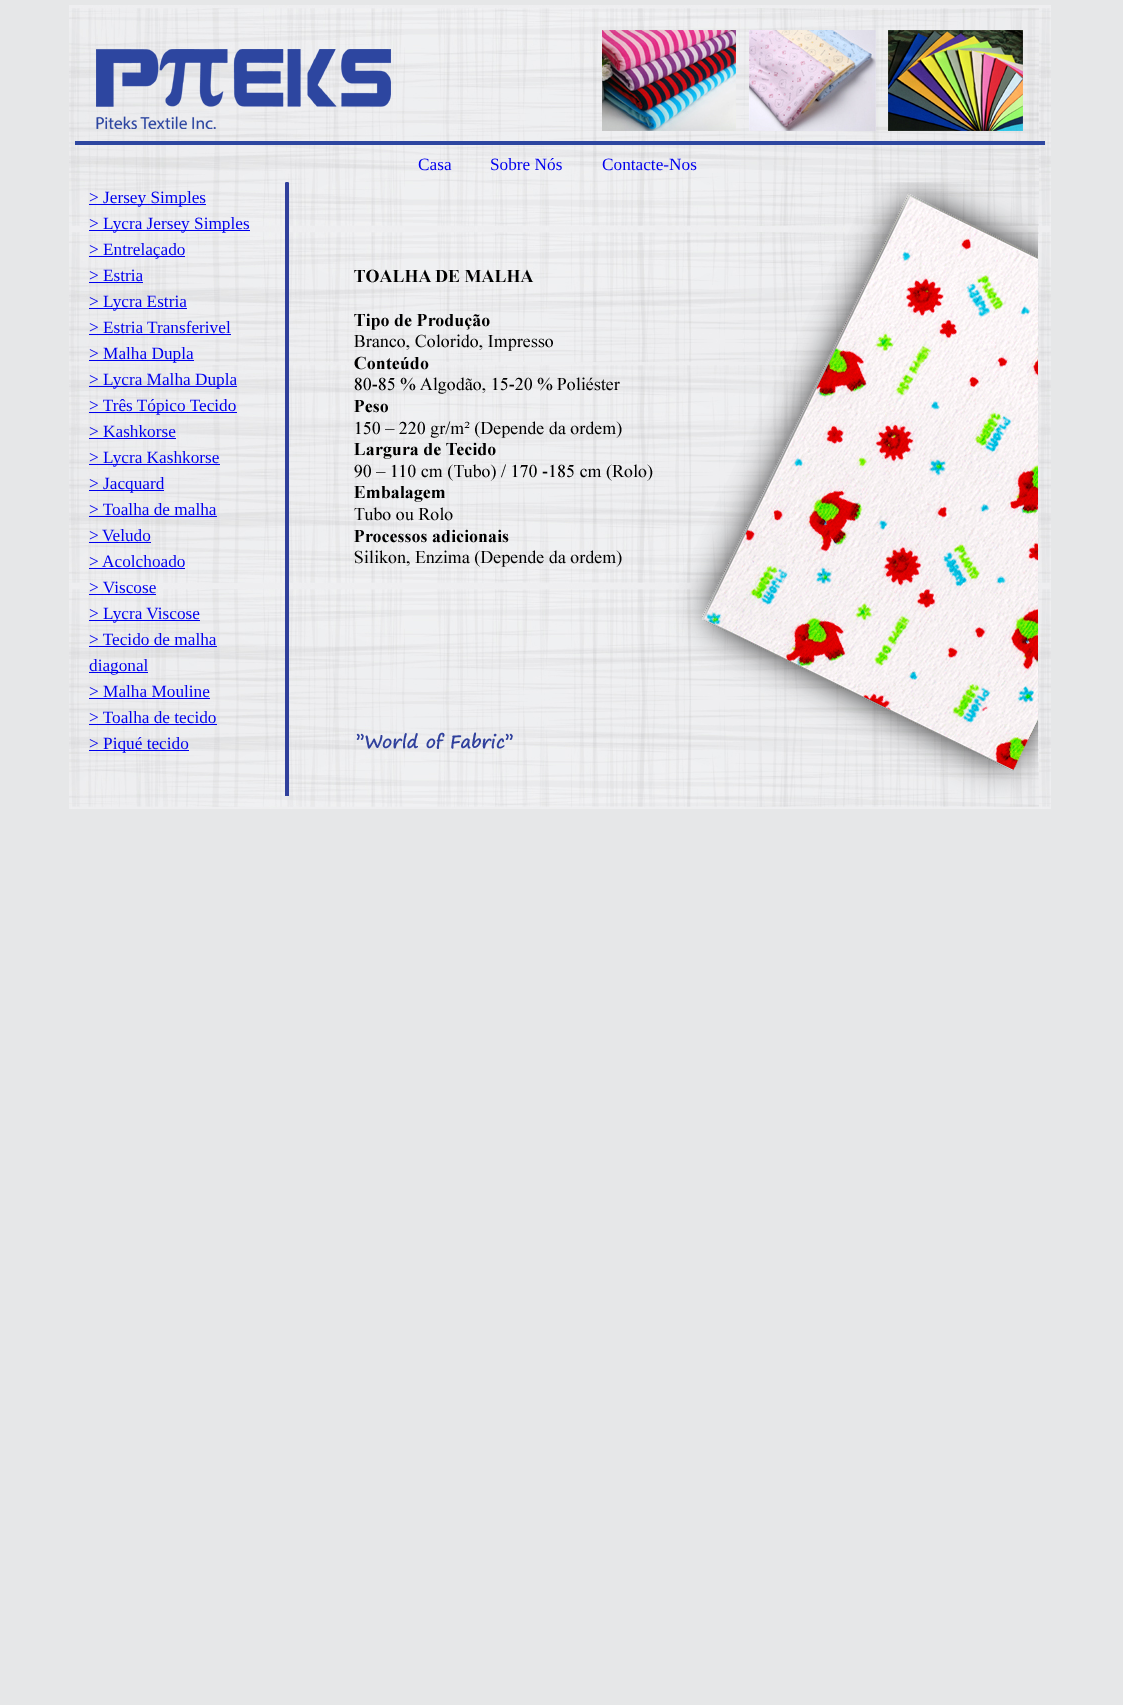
<svg xmlns="http://www.w3.org/2000/svg" width="1123" height="1705">
<rect width="100%" height="100%" fill="#e6e7e8"/>
<image x="69" y="5" width="982" height="804" href="media/1.png"/>
<image x="75" y="30" width="970" height="115" href="media/2.png"/>
<text x="418" y="170" style="font-family:Liberation Serif;font-size:17.25px;fill:#00e">Casa</text>
<text x="490" y="170" style="font-family:Liberation Serif;font-size:17.25px;fill:#00e">Sobre Nós</text>
<text x="602" y="170" style="font-family:Liberation Serif;font-size:17.25px;fill:#00e">Contacte-Nos</text>
<rect x="89" y="204" width="117" height="1" fill="#00e"/>
<text x="89" y="203" style="font-family:Liberation Serif;font-size:17.25px;fill:#00e">&gt; Jersey Simples</text>
<rect x="89" y="230" width="161" height="1" fill="#00e"/>
<text x="89" y="229" style="font-family:Liberation Serif;font-size:17.25px;fill:#00e">&gt; Lycra Jersey Simples</text>
<rect x="89" y="256" width="96" height="1" fill="#00e"/>
<text x="89" y="255" style="font-family:Liberation Serif;font-size:17.25px;fill:#00e">&gt; Entrelaçado</text>
<text x="89" y="281" style="font-family:Liberation Serif;font-size:17.25px;fill:#00e">&gt; Estria</text>
<rect x="89" y="282" width="54" height="1" fill="#00e"/>
<rect x="89" y="308" width="98" height="1" fill="#00e"/>
<text x="89" y="307" style="font-family:Liberation Serif;font-size:17.25px;fill:#00e">&gt; Lycra Estria</text>
<text x="89" y="333" style="font-family:Liberation Serif;font-size:17.25px;fill:#00e">&gt; Estria</text>
<rect x="89" y="334" width="142" height="1" fill="#00e"/>
<text x="147" y="333" style="font-family:Liberation Serif;font-size:17.25px;fill:#00e">Transferivel</text>
<rect x="89" y="360" width="105" height="1" fill="#00e"/>
<text x="89" y="359" style="font-family:Liberation Serif;font-size:17.25px;fill:#00e">&gt; Malha Dupla</text>
<rect x="89" y="386" width="148" height="1" fill="#00e"/>
<text x="89" y="385" style="font-family:Liberation Serif;font-size:17.25px;fill:#00e">&gt; Lycra Malha Dupla</text>
<rect x="89" y="412" width="148" height="1" fill="#00e"/>
<text x="89" y="411" style="font-family:Liberation Serif;font-size:17.25px;fill:#00e">&gt; Três Tópico Tecido</text>
<text x="89" y="437" style="font-family:Liberation Serif;font-size:17.25px;fill:#00e">&gt; Kashkorse</text>
<rect x="89" y="438" width="87" height="1" fill="#00e"/>
<rect x="89" y="464" width="131" height="1" fill="#00e"/>
<text x="89" y="463" style="font-family:Liberation Serif;font-size:17.25px;fill:#00e">&gt; Lycra Kashkorse</text>
<rect x="89" y="490" width="75" height="1" fill="#00e"/>
<text x="89" y="489" style="font-family:Liberation Serif;font-size:17.25px;fill:#00e">&gt; Jacquard</text>
<text x="89" y="515" style="font-family:Liberation Serif;font-size:17.25px;fill:#00e">&gt; Toalha de malha</text>
<rect x="89" y="516" width="128" height="1" fill="#00e"/>
<text x="89" y="541" style="font-family:Liberation Serif;font-size:17.25px;fill:#00e">&gt;</text>
<rect x="89" y="542" width="62" height="1" fill="#00e"/>
<text x="102" y="541" style="font-family:Liberation Serif;font-size:17.25px;fill:#00e">Veludo</text>
<text x="89" y="567" style="font-family:Liberation Serif;font-size:17.25px;fill:#00e">&gt; Acolchoado</text>
<rect x="89" y="568" width="96" height="1" fill="#00e"/>
<text x="89" y="593" style="font-family:Liberation Serif;font-size:17.25px;fill:#00e">&gt; Viscose</text>
<rect x="89" y="594" width="67" height="1" fill="#00e"/>
<rect x="89" y="620" width="111" height="1" fill="#00e"/>
<text x="89" y="619" style="font-family:Liberation Serif;font-size:17.25px;fill:#00e">&gt; Lycra Viscose</text>
<text x="89" y="645" style="font-family:Liberation Serif;font-size:17.25px;fill:#00e">&gt; Tecido de malha</text>
<rect x="89" y="646" width="128" height="1" fill="#00e"/>
<rect x="89" y="672" width="59" height="1" fill="#00e"/>
<text x="89" y="671" style="font-family:Liberation Serif;font-size:17.25px;fill:#00e">diagonal</text>
<text x="89" y="697" style="font-family:Liberation Serif;font-size:17.25px;fill:#00e">&gt; Malha Mouline</text>
<rect x="89" y="698" width="121" height="1" fill="#00e"/>
<text x="89" y="723" style="font-family:Liberation Serif;font-size:17.25px;fill:#00e">&gt; Toalha de tecido</text>
<rect x="89" y="724" width="128" height="1" fill="#00e"/>
<rect x="89" y="750" width="100" height="1" fill="#00e"/>
<text x="89" y="749" style="font-family:Liberation Serif;font-size:17.25px;fill:#00e">&gt; Piqué tecido</text>
<image x="285" y="182" width="753" height="614" href="media/3.png"/>
</svg>
